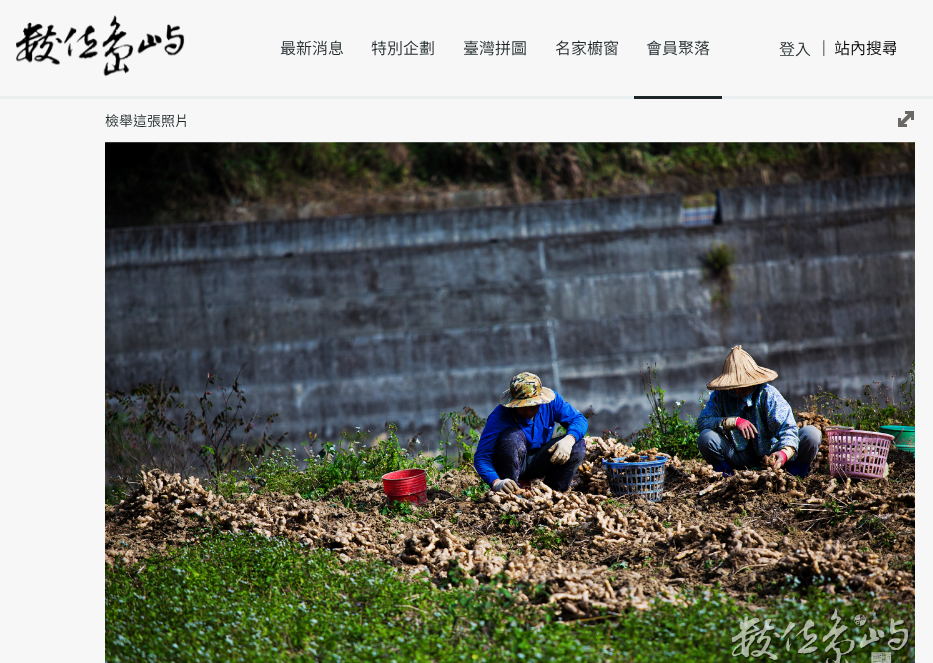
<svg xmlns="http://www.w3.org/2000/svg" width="933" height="663">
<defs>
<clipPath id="clip1"><rect x="834" y="36" width="62" height="24"/></clipPath>
</defs>
<rect width="100%" height="100%" fill="#f7f7f7"/>
<rect y="96" width="933" height="3" fill="#eaefef"/>
<image x="16" y="15" width="169" height="62" href="media/1.png"/>
<text x="280" y="54" style="font-family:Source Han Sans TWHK;font-size:16px;font-weight:300;fill:#1c2528">最新消息</text>
<text x="371" y="54" style="font-family:Source Han Sans TWHK;font-size:16px;font-weight:300;fill:#1c2528">特別企劃</text>
<text x="463" y="54" style="font-family:Source Han Sans TWHK;font-size:16px;font-weight:300;fill:#1c2528">臺灣拼圖</text>
<text x="555" y="54" style="font-family:Source Han Sans TWHK;font-size:16px;font-weight:300;fill:#1c2528">名家櫥窗</text>
<rect x="634" y="96" width="88" height="3" fill="#1c2528"/>
<text x="646" y="54" style="font-family:Source Han Sans TWHK;font-size:16px;font-weight:300;fill:#1c2528">會員聚落</text>
<text x="779" y="55" style="font-family:Source Han Sans TWHK;font-size:16px;font-weight:300;fill:#1c2528">登入</text>
<text x="822" y="52" style="font-family:Source Han Sans TWHK;font-size:14px;font-weight:300;fill:#1c2528">|</text>
<g clip-path="url(#clip1)">
<text x="834" y="54" style="font-family:Source Han Sans TWHK;font-size:16px;font-weight:300;fill:#000">站內搜尋</text>
</g>
<text x="105" y="126" style="font-family:Source Han Sans TWHK;font-size:14px;font-weight:300;fill:#1c2528">檢舉這張照片</text>
<image x="898" y="111" width="16" height="16" href="media/2.png"/>
<image x="105" y="142" width="810" height="521" href="media/3.png"/>
</svg>
